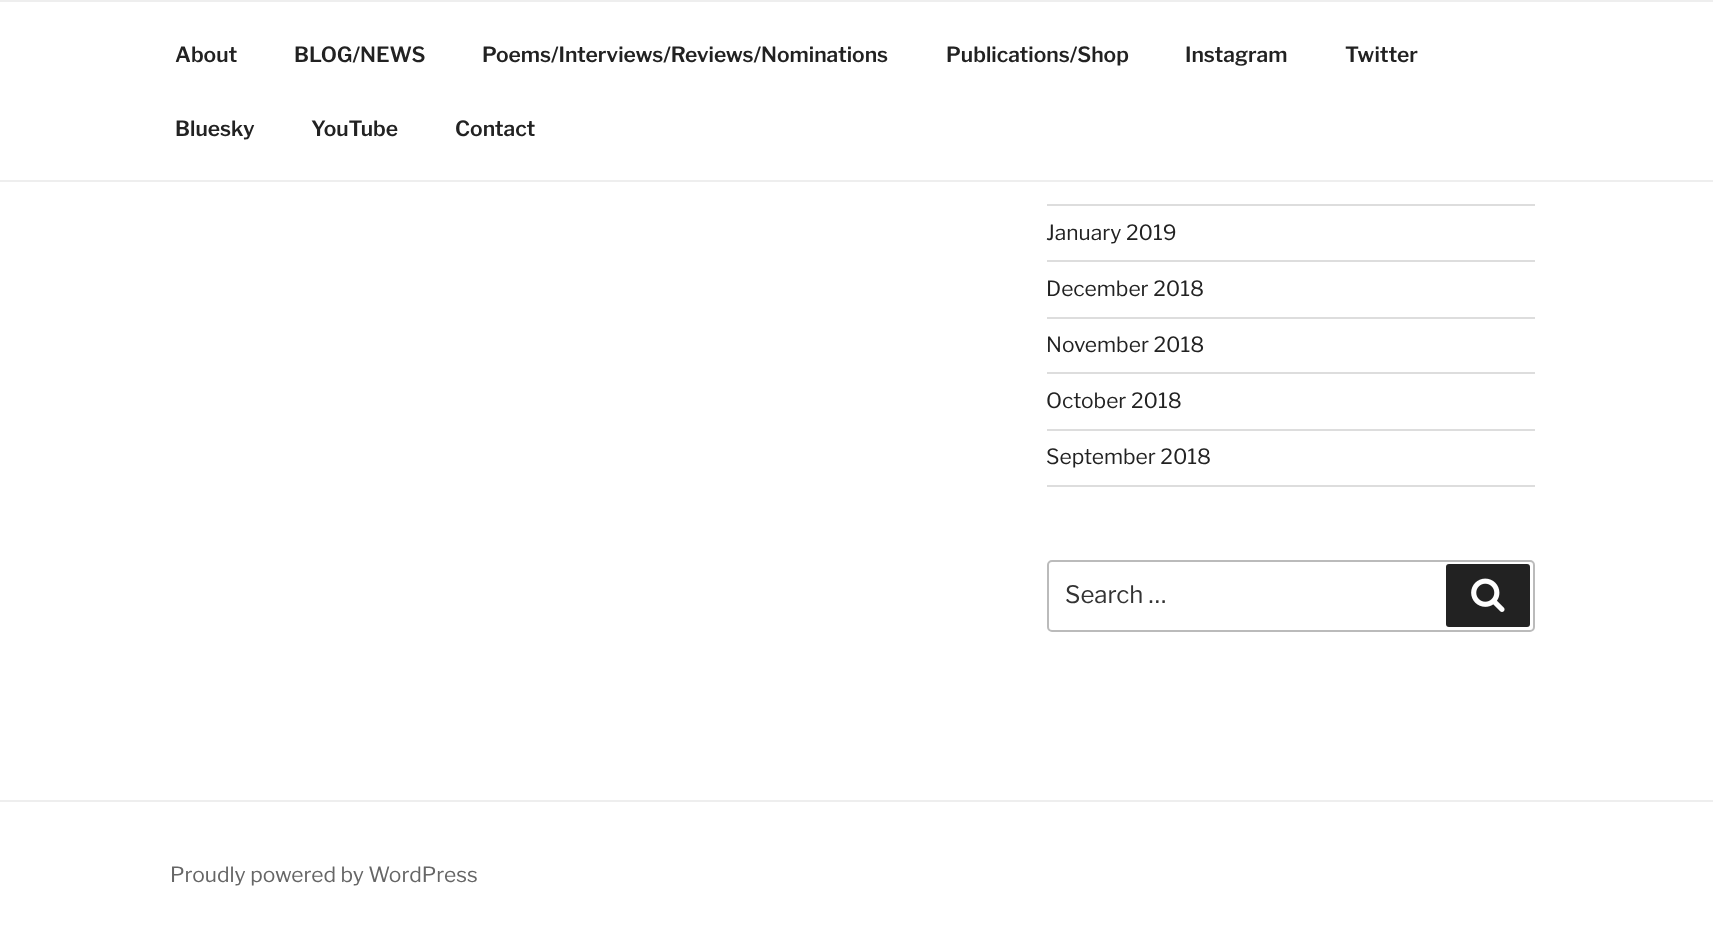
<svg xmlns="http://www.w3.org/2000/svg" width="1713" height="945">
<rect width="100%" height="100%" fill="#fff"/>
<rect width="1713" height="2" fill="#eee"/>
<rect y="180" width="1713" height="2" fill="#eee"/>
<text x="175" y="62" style="font-family:'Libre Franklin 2';font-size:21px;font-weight:100;fill:#222">About</text>
<text x="294" y="62" style="font-family:'Libre Franklin 2';font-size:21px;font-weight:100;fill:#222">BLOG/NEWS</text>
<text x="482" y="62" style="font-family:'Libre Franklin 2';font-size:21px;font-weight:100;fill:#222">Poems/Interviews/Reviews/Nominations</text>
<text x="946" y="62" style="font-family:'Libre Franklin 2';font-size:21px;font-weight:100;fill:#222">Publications/Shop</text>
<text x="1185" y="62" style="font-family:'Libre Franklin 2';font-size:21px;font-weight:100;fill:#222">Instagram</text>
<text x="1345" y="62" style="font-family:'Libre Franklin 2';font-size:21px;font-weight:100;fill:#222">Twitter</text>
<text x="175" y="136" style="font-family:'Libre Franklin 2';font-size:21px;font-weight:100;fill:#222">Bluesky</text>
<text x="311" y="136" style="font-family:'Libre Franklin 2';font-size:21px;font-weight:100;fill:#222">YouTube</text>
<text x="455" y="136" style="font-family:'Libre Franklin 2';font-size:21px;font-weight:100;fill:#222">Contact</text>
<rect x="1047" y="204" width="488" height="2" fill="#ddd"/>
<rect x="1047" y="260" width="488" height="2" fill="#ddd"/>
<text x="1046" y="240" style="font-family:Libre Franklin;font-size:21px;font-weight:100;fill:#222">January 2019</text>
<rect x="1047" y="317" width="488" height="2" fill="#ddd"/>
<text x="1046" y="296" style="font-family:Libre Franklin;font-size:21px;font-weight:100;fill:#222">December 2018</text>
<rect x="1047" y="372" width="488" height="2" fill="#ddd"/>
<text x="1046" y="352" style="font-family:Libre Franklin;font-size:21px;font-weight:100;fill:#222">November 2018</text>
<rect x="1047" y="429" width="488" height="2" fill="#ddd"/>
<text x="1046" y="408" style="font-family:Libre Franklin;font-size:21px;font-weight:100;fill:#222">October 2018</text>
<rect x="1047" y="485" width="488" height="2" fill="#ddd"/>
<text x="1046" y="464" style="font-family:Libre Franklin;font-size:21px;font-weight:100;fill:#222">September 2018</text>
<rect x="1048" y="561" width="486" height="70" rx="4" fill="none" stroke="#bbb" stroke-width="2"/>
<text x="1065" y="603" style="font-family:Libre Franklin;font-size:24px;font-weight:100;fill:#333">Search …</text>
<rect x="1446" y="564" width="84" height="63" rx="3" fill="#222"/>
<image x="1471" y="578" width="34" height="34" href="media/1.png"/>
<rect y="800" width="1713" height="2" fill="#eee"/>
<text x="170" y="882" style="font-family:Libre Franklin;font-size:21px;font-weight:100;fill:#666">Proudly powered by WordPress</text>
</svg>
